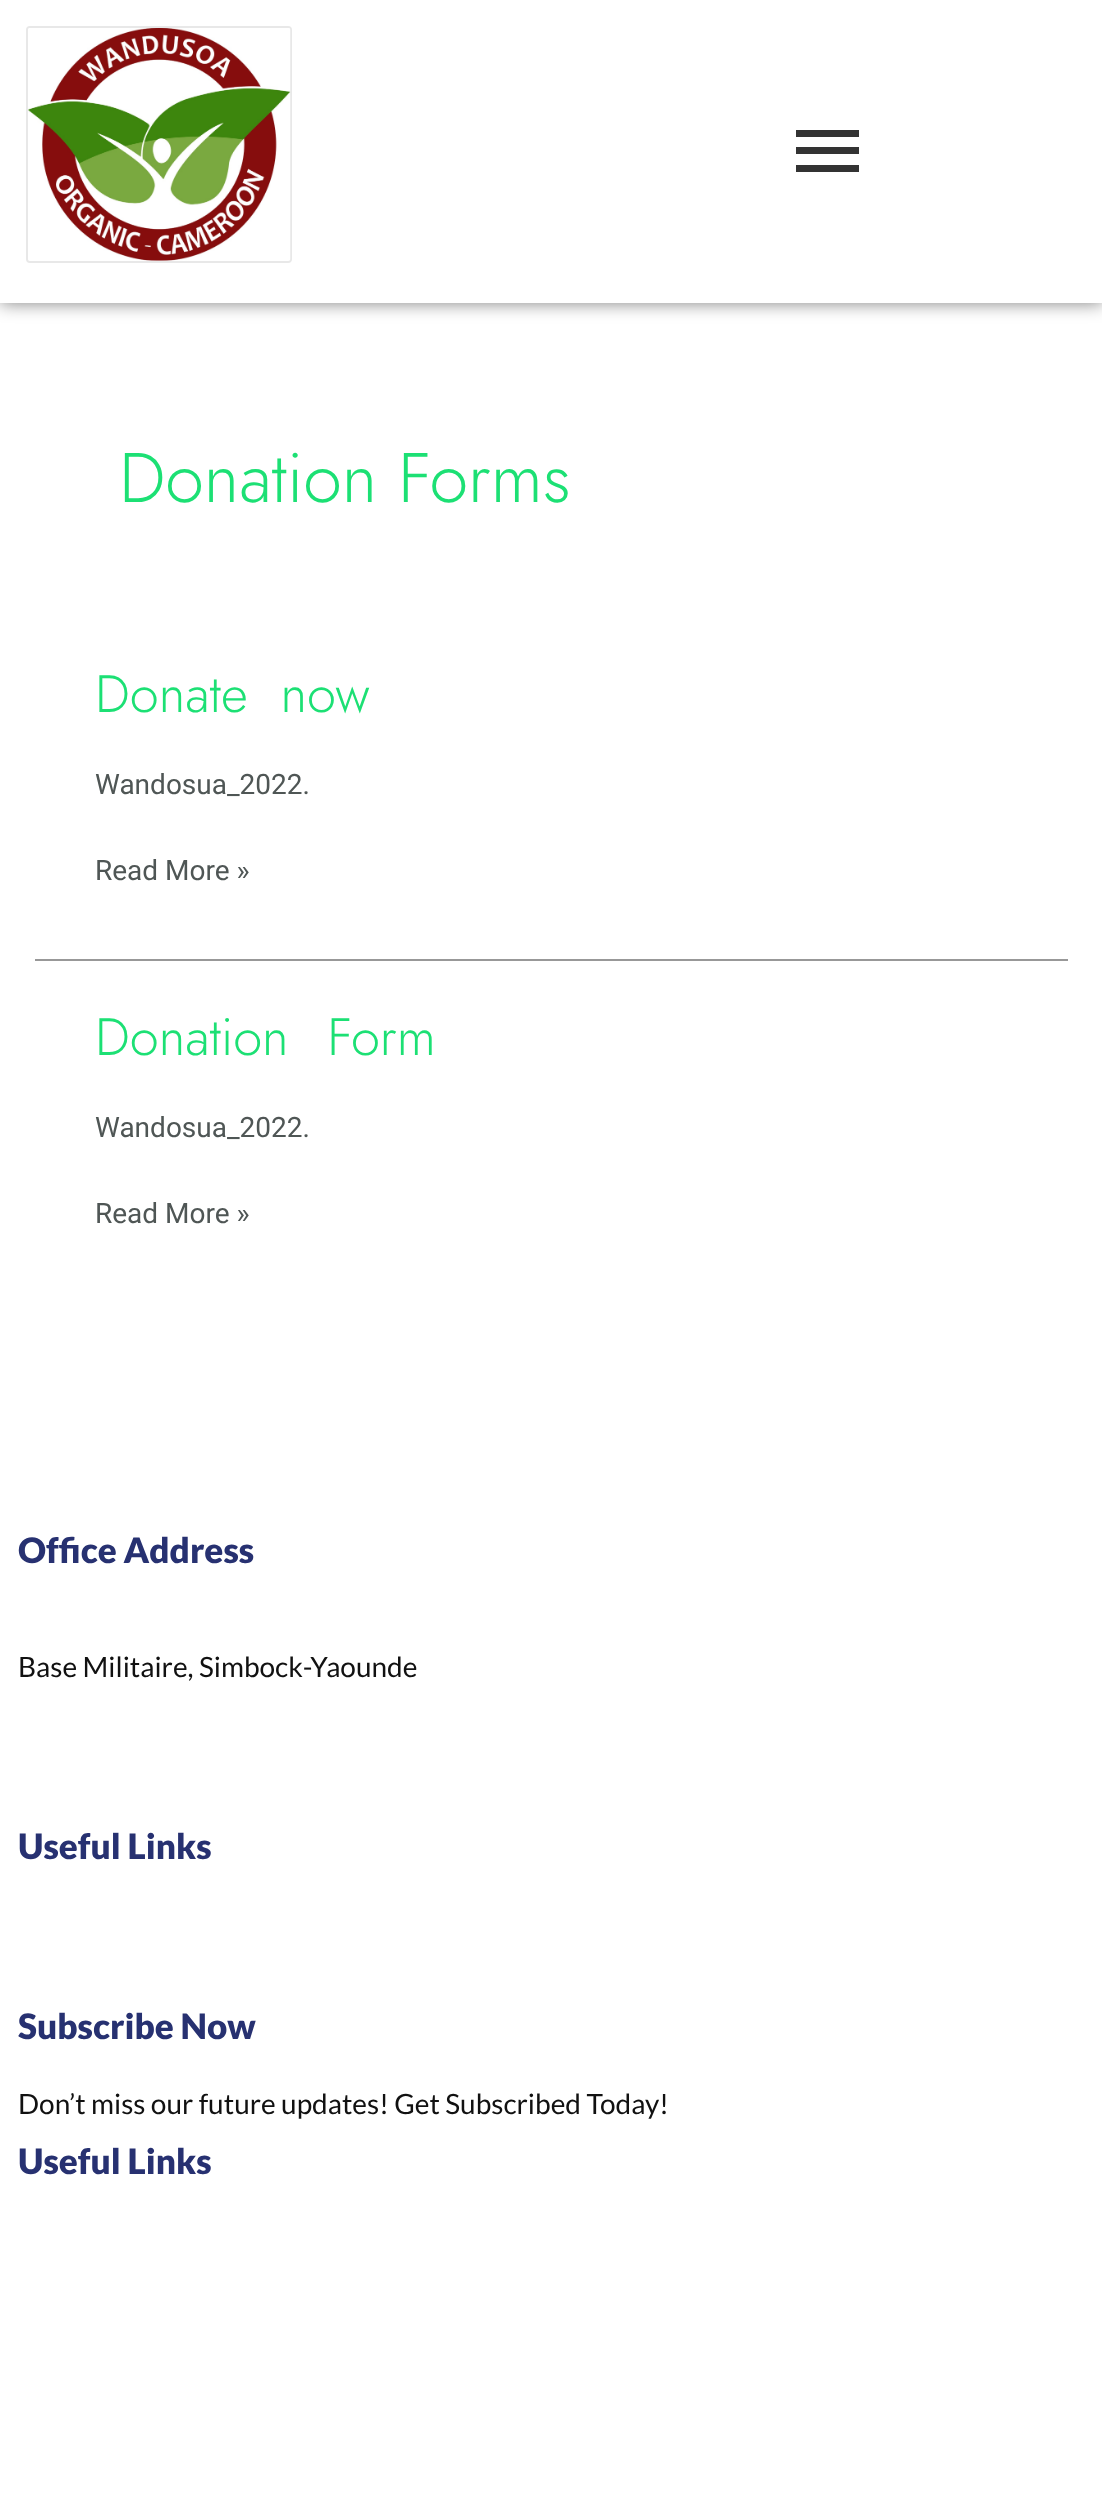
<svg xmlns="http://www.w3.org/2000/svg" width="1102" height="2506">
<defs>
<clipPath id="clip1"><path d="M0 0h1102v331h-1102zm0 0h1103v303h-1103z" clip-rule="evenodd"/></clipPath>
</defs>
<rect width="100%" height="100%" fill="#fff"/>
<g clip-path="url(#clip1)">
<rect width="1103" height="303" fill="#00000080" filter="blur(9px)"/>
</g>
<rect x="27" y="27" width="264" height="235" rx="3" fill="none" stroke="#e8e8e8" stroke-width="2"/>
<image x="28" y="28" width="263" height="233" href="media/1.png"/>
<rect x="796" y="130" width="63" height="7" fill="#333"/>
<rect x="796" y="147" width="63" height="7" fill="#333"/>
<rect x="796" y="165" width="63" height="7" fill="#333"/>
<text x="119" y="502" style="font-family:Jost;font-size:70px;font-weight:300;fill:#1ce074">Donation Forms</text>
<rect x="35" y="959" width="1033" height="2" fill="#989898"/>
<text x="95" y="712" word-spacing="17" style="font-family:Jost;font-size:52.5px;font-weight:300;fill:#1ce074">Donate now</text>
<text x="95" y="794" style="font-family:Roboto;font-size:28px;fill:#4f5655">Wandosua_2022.</text>
<text x="95" y="880" style="font-family:Roboto;font-size:28px;fill:#4f5655">Read More »</text>
<text x="95" y="1055" word-spacing="23" style="font-family:Jost;font-size:52.5px;font-weight:300;fill:#1ce074">Donation Form</text>
<text x="95" y="1137" style="font-family:Roboto;font-size:28px;fill:#4f5655">Wandosua_2022.</text>
<text x="95" y="1223" style="font-family:Roboto;font-size:28px;fill:#4f5655">Read More »</text>
<text x="18" y="1563" style="font-family:Lato;font-size:35px;font-weight:900;fill:#273171">Office Address</text>
<text x="18" y="1677" style="font-family:Lato;font-size:28px;fill:#111">Base Militaire, Simbock-Yaounde</text>
<text x="18" y="1859" style="font-family:Lato;font-size:35px;font-weight:900;fill:#273171">Useful Links</text>
<text x="18" y="2039" style="font-family:Lato;font-size:35px;font-weight:900;fill:#273171">Subscribe Now</text>
<text x="18" y="2114" style="font-family:Lato;font-size:28px;fill:#111">Don’t miss our future updates! Get Subscribed Today!</text>
<text x="18" y="2174" style="font-family:Lato;font-size:35px;font-weight:900;fill:#273171">Useful Links</text>
</svg>
